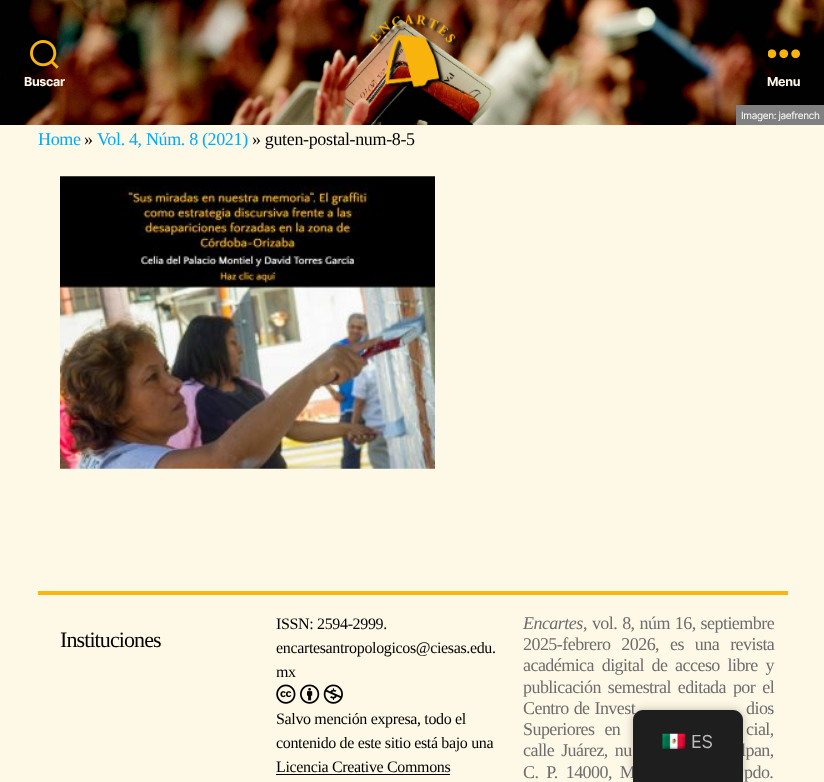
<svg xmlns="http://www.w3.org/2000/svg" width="824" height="782">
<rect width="100%" height="100%" fill="#fef8e6"/>
<image x="0" y="0" width="824" height="125" href="media/1.png"/>
<image x="30" y="40" width="29" height="29" href="media/2.png"/>
<text x="24" y="86" style="font-family:Inter;font-size:12.5px;font-weight:bold;letter-spacing:-0.35px;fill:#fef8e6">Buscar</text>
<image x="369" y="14" width="91" height="77" href="media/3.png"/>
<image x="768" y="49" width="32" height="10" href="media/4.png"/>
<text x="767" y="86" style="font-family:Inter;font-size:12.5px;font-weight:bold;letter-spacing:-0.35px;fill:#fef8e6">Menu</text>
<rect x="736" y="105" width="88" height="20" fill="#808080"/>
<text x="741" y="119" style="font-family:Inter;font-size:10px;letter-spacing:-0.35px;fill:#fff">Imagen: jaefrench</text>
<text x="38" y="145" style="font-family:Liberation Serif;font-size:18px;letter-spacing:-0.35px;fill:#0af">Home</text>
<text x="84" y="145" style="font-family:Liberation Serif;font-size:18px;letter-spacing:-0.35px;fill:#000">»</text>
<text x="97" y="145" style="font-family:Liberation Serif;font-size:18px;letter-spacing:-0.35px;fill:#0af">Vol. 4, Núm. 8 (2021)</text>
<text x="252" y="145" style="font-family:Liberation Serif;font-size:18px;letter-spacing:-0.35px;fill:#000">» guten-postal-num-8-5</text>
<image x="60" y="176" width="375" height="293" href="media/5.png"/>
<rect x="38" y="591" width="750" height="4" fill="#fab60d"/>
<text x="60" y="647" style="font-family:Liberation Serif;font-size:22px;letter-spacing:-0.9px;fill:#000">Instituciones</text>
<text x="276" y="629" style="font-family:Liberation Serif;font-size:16px;letter-spacing:-0.35px;fill:#000">ISSN: 2594-2999.</text>
<text x="276" y="653" style="font-family:Liberation Serif;font-size:16px;letter-spacing:-0.35px;fill:#000">encartesantropologicos@ciesas.edu.</text>
<text x="276" y="677" style="font-family:Liberation Serif;font-size:16px;letter-spacing:-0.35px;fill:#000">mx</text>
<image x="276" y="684" width="20" height="20" href="media/6.png"/>
<image x="300" y="684" width="20" height="20" href="media/7.png"/>
<image x="323" y="684" width="20" height="20" href="media/8.png"/>
<text x="276" y="724" style="font-family:Liberation Serif;font-size:16px;letter-spacing:-0.35px;fill:#000">Salvo mención expresa, todo el</text>
<text x="276" y="748" style="font-family:Liberation Serif;font-size:16px;letter-spacing:-0.35px;fill:#000">contenido de este sitio está bajo una</text>
<text x="276" y="772" style="font-family:Liberation Serif;font-size:16px;letter-spacing:-0.35px;fill:#000">Licencia Creative Commons</text>
<rect x="276" y="774" width="174" height="1" fill="#000"/>
<text x="523" y="629" style="font-family:Liberation Serif;font-size:18px;font-style:italic;letter-spacing:-0.55px;fill:#6d6d6d">Encartes</text>
<text x="583" y="629" word-spacing="1" style="font-family:Liberation Serif;font-size:18px;letter-spacing:-0.55px;fill:#6d6d6d">, vol. 8, núm 16, septiembre</text>
<text x="523" y="650" word-spacing="7" style="font-family:Liberation Serif;font-size:18px;letter-spacing:-0.55px;fill:#6d6d6d">2025-febrero 2026, es una revista</text>
<text x="523" y="671" word-spacing="3.75" style="font-family:Liberation Serif;font-size:18px;letter-spacing:-0.55px;fill:#6d6d6d">académica digital de acceso libre y</text>
<text x="523" y="693" word-spacing="3" style="font-family:Liberation Serif;font-size:18px;letter-spacing:-0.55px;fill:#6d6d6d">publicación semestral editada por el</text>
<text x="523" y="714" word-spacing="1" style="font-family:Liberation Serif;font-size:18px;letter-spacing:-0.55px;fill:#6d6d6d">Centro de Invest</text>
<text x="746" y="714" word-spacing="1" style="font-family:Liberation Serif;font-size:18px;letter-spacing:-0.55px;fill:#6d6d6d">dios</text>
<text x="523" y="735" word-spacing="6" style="font-family:Liberation Serif;font-size:18px;letter-spacing:-0.55px;fill:#6d6d6d">Superiores en</text>
<text x="746" y="735" word-spacing="6" style="font-family:Liberation Serif;font-size:18px;letter-spacing:-0.55px;fill:#6d6d6d">cial,</text>
<text x="523" y="756" word-spacing="3" style="font-family:Liberation Serif;font-size:18px;letter-spacing:-0.55px;fill:#6d6d6d">calle Juárez, nu</text>
<text x="741" y="756" word-spacing="3" style="font-family:Liberation Serif;font-size:18px;letter-spacing:-0.55px;fill:#6d6d6d">lpan,</text>
<text x="523" y="778" word-spacing="4" style="font-family:Liberation Serif;font-size:18px;letter-spacing:-0.55px;fill:#6d6d6d">C. P. 14000, M</text>
<text x="744" y="778" word-spacing="4" style="font-family:Liberation Serif;font-size:18px;letter-spacing:-0.55px;fill:#6d6d6d">pdo.</text>
<rect x="633" y="710" width="110" height="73" rx="10" fill="#00000040" filter="blur(5px)"/>
<path d="M643 710h90c5.5 0 10 4.5 10 10v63h-110v-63c0-5.5 4.5-10 10-10z" fill="#1e1e1e"/>
<image x="662" y="733" width="23" height="16" href="media/9.png"/>
<text x="691" y="748" style="font-family:Inter;font-size:18px;letter-spacing:-0.35px;fill:#bdbdbd">ES</text>
</svg>
